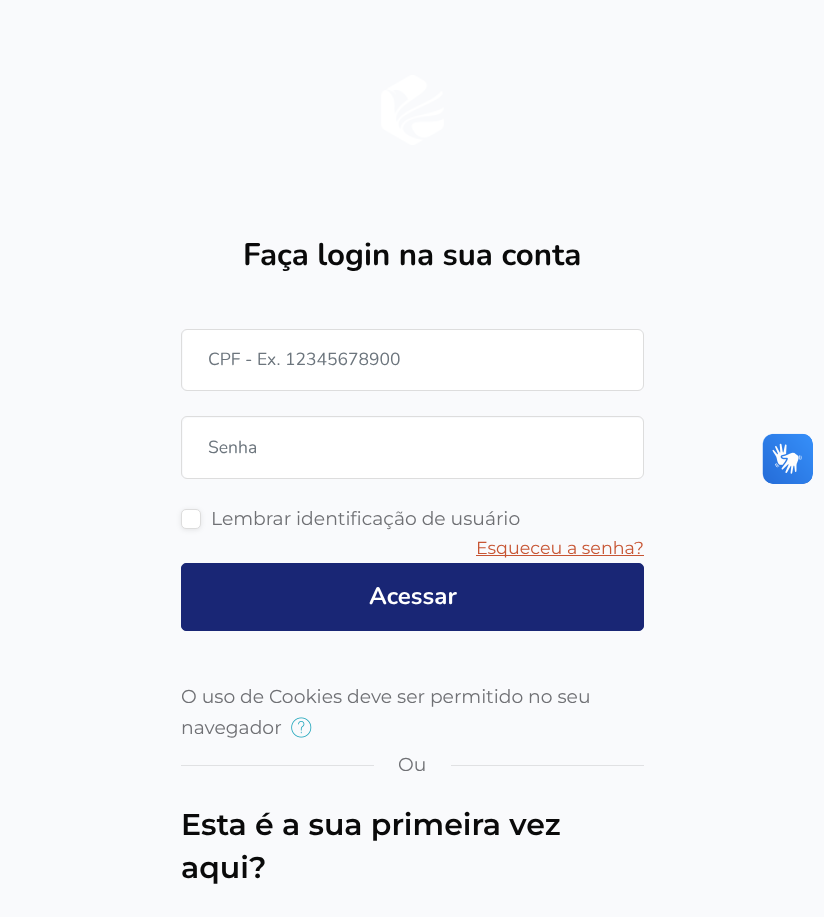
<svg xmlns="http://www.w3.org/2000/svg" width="824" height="917">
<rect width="100%" height="100%" fill="#f9fafc"/>
<image x="381" y="75" width="63" height="70" href="media/1.png"/>
<text x="243" y="265" style="font-family:Nunito;font-size:31.25px;font-weight:bold;fill:#0a0a0a">Faça login na sua conta</text>
<rect x="183" y="330" width="460" height="60" rx="5" fill="#fff"/>
<rect x="181.5" y="329.5" width="462" height="61" rx="5.5" fill="none" stroke="#ddd"/>
<text x="208" y="365" style="font-family:Nunito;font-size:17.5px;fill:#6c757d">CPF - Ex. 12345678900</text>
<rect x="183" y="418" width="460" height="60" rx="5" fill="#fff"/>
<rect x="181.5" y="416.5" width="462" height="62" rx="5.5" fill="none" stroke="#ddd"/>
<text x="208" y="453" style="font-family:Nunito;font-size:17.5px;fill:#6c757d">Senha</text>
<rect x="181" y="510" width="20" height="20" rx="5" fill="#00000017" filter="blur(2.5px)"/>
<rect x="181.5" y="509.5" width="19" height="19" rx="4.5" fill="#fff" stroke="#ddd"/>
<text x="211" y="525" style="font-family:Montserrat;font-size:18.75px;fill:#6f7074">Lembrar identificação de usuário</text>
<rect x="476" y="555" width="168" height="1" fill="#c75533"/>
<text x="476" y="554" style="font-family:Montserrat;font-size:17.5px;fill:#c75533">Esqueceu a senha?</text>
<rect x="181.5" y="563.5" width="462" height="67" rx="4.5" fill="#192675" stroke="#192675"/>
<text x="369" y="604" style="font-family:Nunito;font-size:24px;font-weight:bold;fill:#fff">Acessar</text>
<text x="181" y="703" style="font-family:Montserrat;font-size:18.75px;fill:#6f7074">O uso de Cookies deve ser permitido no seu</text>
<text x="181" y="734" style="font-family:Montserrat;font-size:18.75px;fill:#6f7074">navegador</text>
<image x="291" y="717" width="21" height="21" href="media/2.png"/>
<rect x="181" y="765" width="463" height="1" fill="#e0e1e3"/>
<rect x="374" y="765" width="77" height="1" fill="#f9fafc"/>
<text x="398" y="771" style="font-family:Montserrat;font-size:18.75px;fill:#6f7074">Ou</text>
<text x="181" y="835" style="font-family:Montserrat;font-size:30px;font-weight:600;fill:#0a0a0a">Esta é a sua primeira vez</text>
<text x="181" y="878" style="font-family:Montserrat;font-size:30px;font-weight:600;fill:#0a0a0a">aqui?</text>
<image x="762" y="433" width="51" height="51" href="media/3.png"/>
<image x="763" y="434" width="50" height="50" href="media/4.png"/>
</svg>
